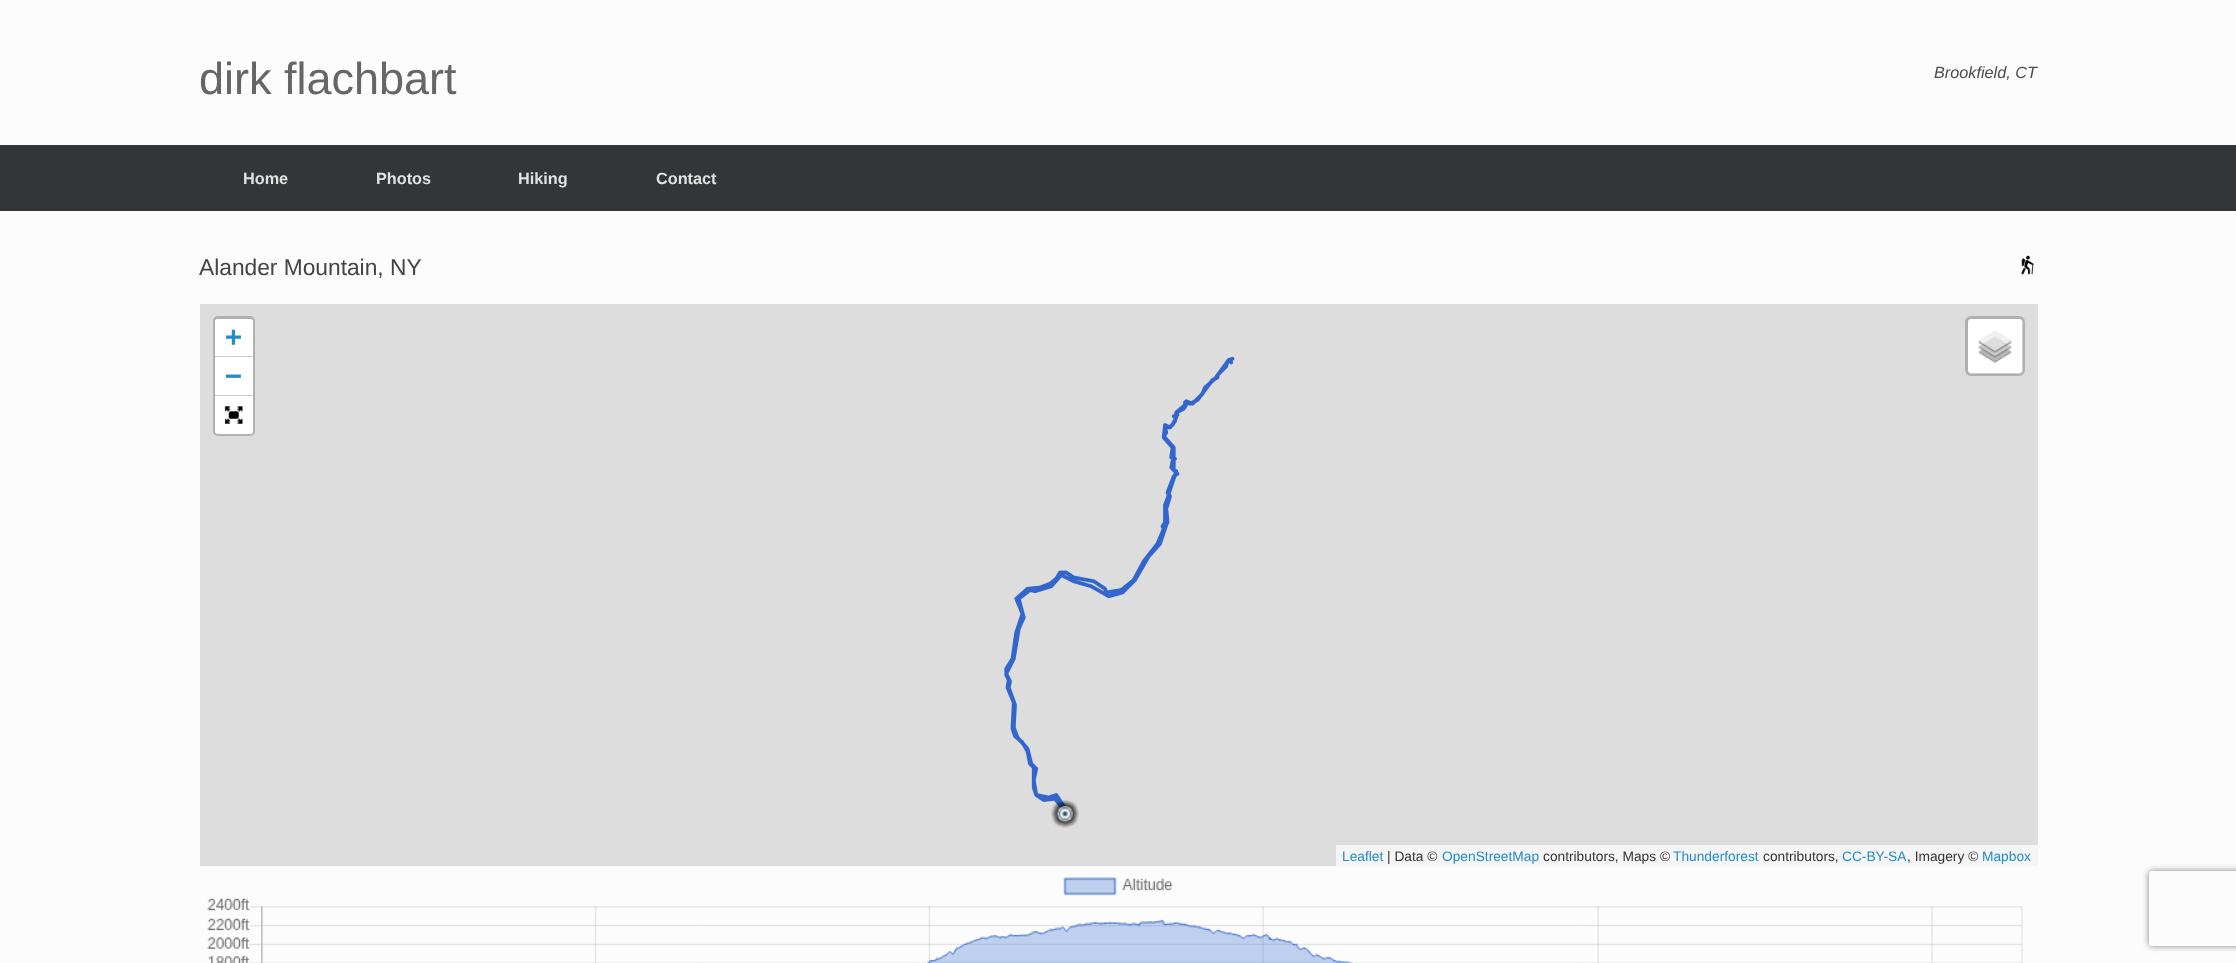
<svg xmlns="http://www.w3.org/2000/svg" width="2236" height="963">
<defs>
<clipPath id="clip1"><path d="M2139 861h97v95h-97zm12.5 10h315c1.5 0 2.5 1 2.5 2.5v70c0 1.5-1 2.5-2.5 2.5h-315c-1.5 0-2.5-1-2.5-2.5v-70c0-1.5 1-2.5 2.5-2.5z" clip-rule="evenodd"/></clipPath>
</defs>
<rect width="100%" height="100%" fill="#fcfcfc"/>
<text x="199" y="94" style="font-family:Liberation Sans;font-size:45px;fill:#666">dirk flachbart</text>
<text x="1934" y="78" style="font-family:Liberation Sans;font-size:16.25px;font-style:italic;fill:#4b4b4b">Brookfield, CT</text>
<rect y="145" width="2236" height="66" fill="#343538"/>
<text x="243" y="184" style="font-family:Liberation Sans;font-size:16.25px;font-weight:bold;fill:#e2e2e2">Home</text>
<text x="376" y="184" style="font-family:Liberation Sans;font-size:16.25px;font-weight:bold;fill:#e2e2e2">Photos</text>
<text x="518" y="184" style="font-family:Liberation Sans;font-size:16.25px;font-weight:bold;fill:#e2e2e2">Hiking</text>
<text x="656" y="184" style="font-family:Liberation Sans;font-size:16.25px;font-weight:bold;fill:#e2e2e2">Contact</text>
<text x="199" y="275" style="font-family:Liberation Sans;font-size:22.75px;fill:#444">Alander Mountain, NY</text>
<image x="2021" y="255" width="13" height="20" href="media/1.png"/>
<rect x="200" y="304" width="1838" height="562" fill="#ddd"/>
<rect x="214.5" y="317.5" width="39" height="117" rx="3.5" fill="none" stroke="#b1b1b1" stroke-width="3"/>
<path d="M217.5 319h33c1.5 0 2.5 1 2.5 2.5v36.5h-38v-36.5c0-1.5 1-2.5 2.5-2.5z" fill="#fff"/>
<rect x="215" y="356" width="38" height="1" fill="#ccc"/>
<text x="225" y="346" style="font-family:DejaVu Sans Mono;font-size:28px;font-weight:bold;fill:#248cc8">+</text>
<rect x="215" y="358" width="38" height="37" fill="#fff"/>
<rect x="215" y="395" width="38" height="1" fill="#ccc"/>
<text x="225" y="385" style="font-family:DejaVu Sans Mono;font-size:28px;font-weight:bold;fill:#248cc8">−</text>
<path d="M215 396h38v35.5c0 1.5-1 2.5-2.5 2.5h-33c-1.5 0-2.5-1-2.5-2.5z" fill="#fff"/>
<image x="224" y="406" width="19" height="18" href="media/2.png"/>
<rect x="1968" y="319" width="55" height="55" rx="4" fill="#fff"/>
<rect x="1966.5" y="317.5" width="57" height="57" rx="4.5" fill="none" stroke="#00000033" stroke-width="3"/>
<image x="1978" y="331" width="34" height="32" href="media/3.png"/>
<rect x="1336" y="845" width="702" height="21" fill="#f5f5f5"/>
<text x="1342" y="861" style="font-family:Liberation Sans;font-size:13.75px;fill:#248cc8">Leaflet</text>
<text x="1387" y="861" style="font-family:Liberation Sans;font-size:13.75px;fill:#333">| Data ©</text>
<text x="1442" y="861" style="font-family:Liberation Sans;font-size:13.75px;fill:#248cc8">OpenStreetMap</text>
<text x="1543" y="861" style="font-family:Liberation Sans;font-size:13.75px;fill:#333">contributors, Maps ©</text>
<text x="1673" y="861" style="font-family:Liberation Sans;font-size:13.75px;fill:#248cc8">Thunderforest</text>
<text x="1763" y="861" style="font-family:Liberation Sans;font-size:13.75px;fill:#333">contributors,</text>
<text x="1842" y="861" style="font-family:Liberation Sans;font-size:13.75px;fill:#248cc8">CC-BY-SA</text>
<text x="1907" y="861" style="font-family:Liberation Sans;font-size:13.75px;fill:#333">, Imagery ©</text>
<text x="1982" y="861" style="font-family:Liberation Sans;font-size:13.75px;fill:#248cc8">Mapbox</text>
<image x="1004" y="356" width="231" height="456" href="media/4.png"/>
<image x="1051" y="799" width="28" height="29" href="media/5.png"/>
<image x="207" y="877" width="1816" height="86" href="media/6.png"/>
<g clip-path="url(#clip1)">
<rect x="2149" y="871" width="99" height="75" rx="2.5" fill="#808080" filter="blur(3px)"/>
</g>
</svg>
